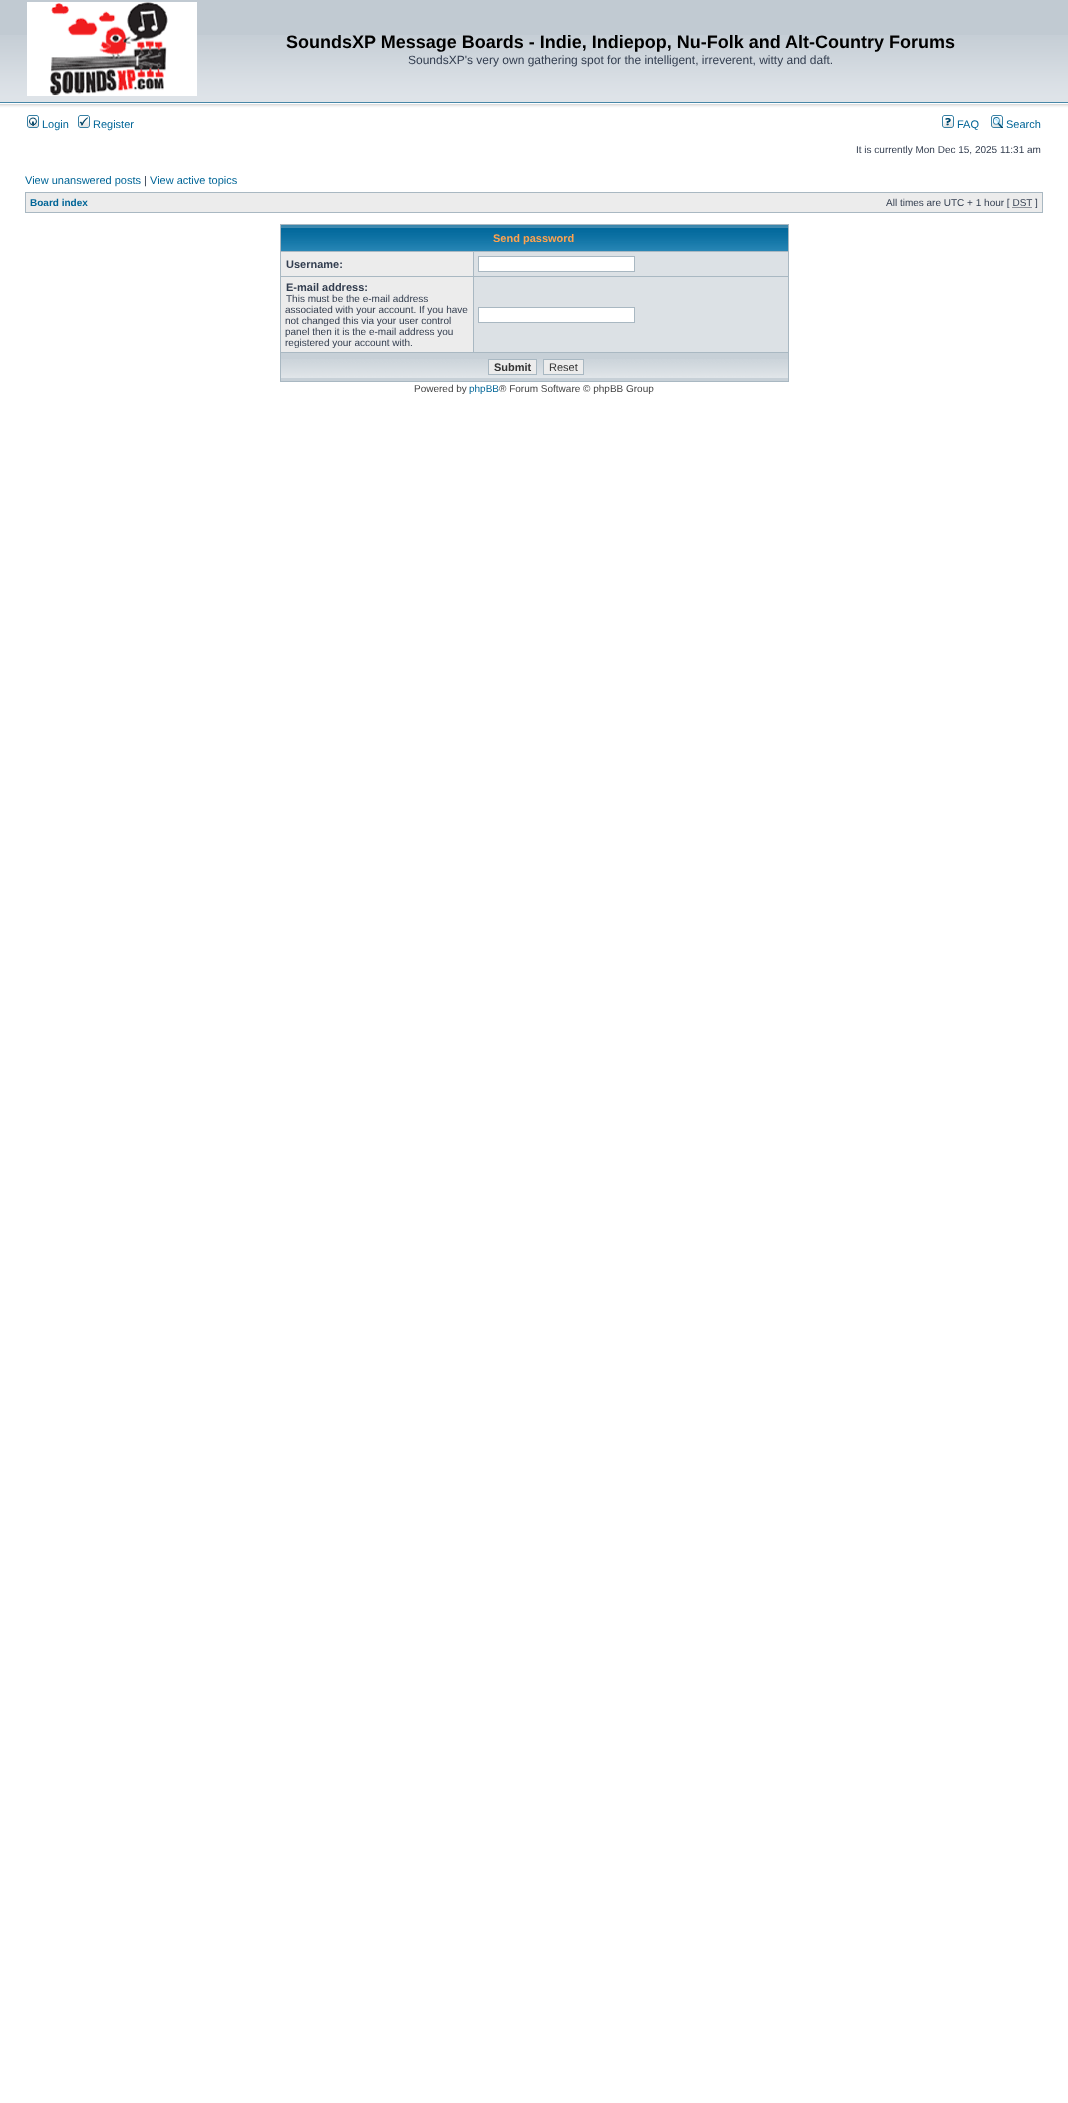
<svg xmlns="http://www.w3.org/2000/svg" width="1068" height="2103">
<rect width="100%" height="100%" fill="#fff"/>
<rect width="1068" height="35" fill="#c1cad2"/>
<image x="0" y="35" width="1068" height="78" href="media/1.png"/>
<image x="27" y="2" width="170" height="94" href="media/2.png"/>
<text x="286" y="48" style="font-family:Liberation Sans;font-size:18px;font-weight:bold;fill:#000">SoundsXP Message Boards - Indie, Indiepop, Nu-Folk and Alt-Country Forums</text>
<text x="408" y="64" style="font-family:Liberation Sans;font-size:12px;fill:#323d4f">SoundsXP's very own gathering spot for the intelligent, irreverent, witty and daft.</text>
<image x="27" y="115" width="12" height="13" href="media/3.png"/>
<text x="42" y="128" style="font-family:Liberation Sans;font-size:11px;fill:#006597">Login</text>
<image x="78" y="115" width="12" height="13" href="media/4.png"/>
<text x="93" y="128" style="font-family:Liberation Sans;font-size:11px;fill:#006597">Register</text>
<image x="942" y="115" width="12" height="13" href="media/5.png"/>
<text x="957" y="128" style="font-family:Liberation Sans;font-size:11px;fill:#006597">FAQ</text>
<image x="991" y="115" width="12" height="13" href="media/6.png"/>
<text x="1006" y="128" style="font-family:Liberation Sans;font-size:11px;fill:#006597">Search</text>
<text x="856" y="153" style="font-family:Liberation Sans;font-size:10px;fill:#323d4f">It is currently Mon Dec 15, 2025 11:31 am</text>
<text x="25" y="184" style="font-family:Liberation Sans;font-size:11px;fill:#006597">View unanswered posts</text>
<text x="144" y="184" style="font-family:Liberation Sans;font-size:11px;fill:#323d4f">|</text>
<text x="150" y="184" style="font-family:Liberation Sans;font-size:11px;fill:#006597">View active topics</text>
<rect x="25" y="192" width="1018" height="21" fill="#a9b8c2"/>
<rect x="26" y="193" width="1016" height="19" fill="#ececec"/>
<text x="30" y="206" style="font-family:Liberation Sans;font-size:10px;font-weight:bold;fill:#006597">Board index</text>
<text x="886" y="206" style="font-family:Liberation Sans;font-size:10px;fill:#323d4f">All times are UTC + 1 hour [ DST ]</text>
<path d="M1012.5 207.5h20" fill="none" stroke="#323d4f" stroke-dasharray="1 1"/>
<rect x="280" y="224" width="509" height="158" fill="#a9b8c2"/>
<image x="281" y="225" width="507" height="26" href="media/7.png"/>
<text x="493" y="242" style="font-family:Liberation Sans;font-size:11px;font-weight:bold;fill:#ffa34f">Send password</text>
<rect x="281" y="252" width="192" height="24" fill="#ececec"/>
<text x="286" y="268" style="font-family:Liberation Sans;font-size:11px;font-weight:bold;fill:#323d4f">Username:</text>
<rect x="474" y="252" width="314" height="24" fill="#dce1e5"/>
<rect x="478.5" y="256.5" width="156" height="15" fill="#fff" stroke="#a9b8c2"/>
<rect x="281" y="277" width="192" height="75" fill="#ececec"/>
<text x="286" y="291" style="font-family:Liberation Sans;font-size:11px;font-weight:bold;fill:#323d4f">E-mail address:</text>
<text x="286" y="302" style="font-family:Liberation Sans;font-size:10px;fill:#323d4f">This must be the e-mail address</text>
<text x="285" y="313" style="font-family:Liberation Sans;font-size:10px;fill:#323d4f">associated with your account. If you have</text>
<text x="285" y="324" style="font-family:Liberation Sans;font-size:10px;fill:#323d4f">not changed this via your user control</text>
<text x="285" y="335" style="font-family:Liberation Sans;font-size:10px;fill:#323d4f">panel then it is the e-mail address you</text>
<text x="285" y="346" style="font-family:Liberation Sans;font-size:10px;fill:#323d4f">registered your account with.</text>
<rect x="474" y="277" width="314" height="75" fill="#dce1e5"/>
<rect x="478.5" y="307.5" width="156" height="15" fill="#fff" stroke="#a9b8c2"/>
<rect x="281" y="353" width="507" height="28" fill="#c7d0d7"/>
<image x="281" y="359" width="507" height="19" href="media/8.png"/>
<rect x="488.5" y="359.5" width="48" height="15" fill="#ececec" stroke="#a9b8c2"/>
<text x="494" y="371" style="font-family:Liberation Sans;font-size:11px;font-weight:bold;fill:#333">Submit</text>
<rect x="543.5" y="359.5" width="40" height="15" fill="#ececec" stroke="#a9b8c2"/>
<text x="549" y="371" style="font-family:Liberation Sans;font-size:11px;fill:#333">Reset</text>
<text x="414" y="392" style="font-family:Liberation Sans;font-size:10px;fill:#444">Powered by</text>
<text x="469" y="392" style="font-family:Liberation Sans;font-size:10px;fill:#006597">phpBB</text>
<text x="499" y="392" style="font-family:Liberation Sans;font-size:10px;fill:#444">® Forum Software © phpBB Group</text>
</svg>
